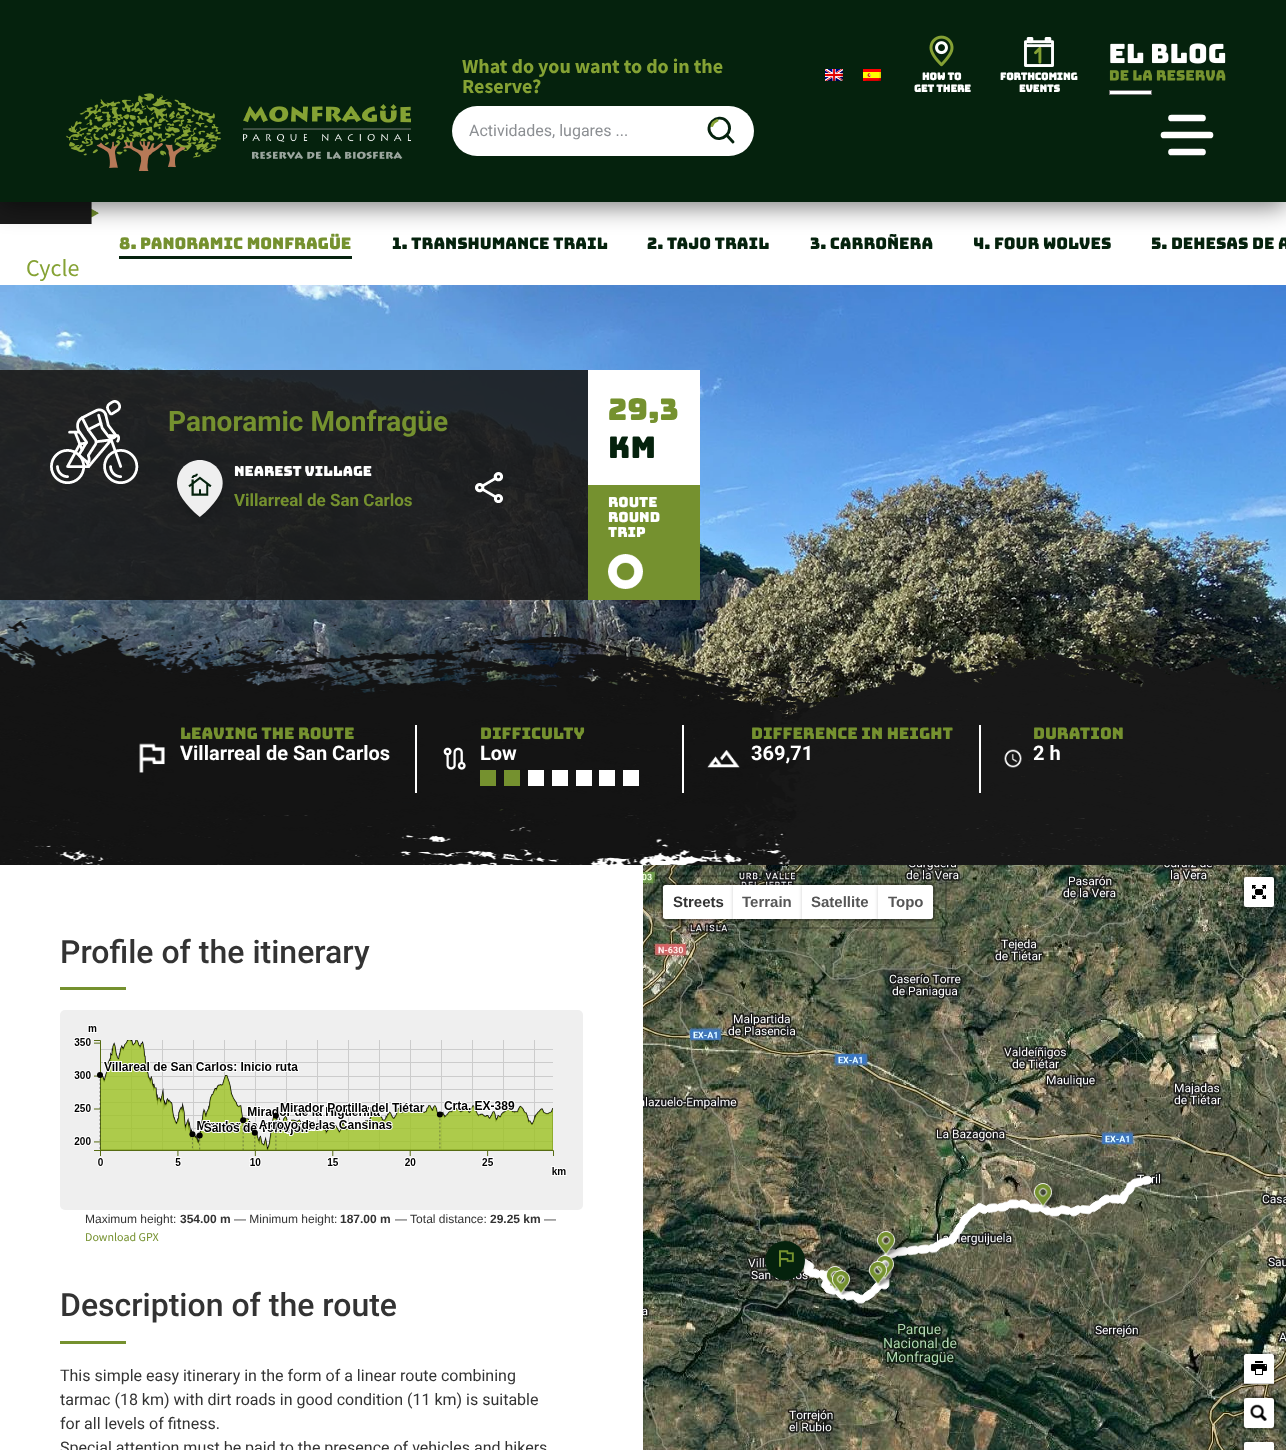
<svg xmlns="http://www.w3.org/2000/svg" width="1286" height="1450">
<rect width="100%" height="100%" fill="#fff"/>
<image x="0" y="202" width="99" height="22" href="media/7.png"/>
<rect y="5" width="1286" height="202" fill="#00000080" filter="blur(12.5px)"/>
<rect width="1286" height="202" fill="#05220d"/>
<text x="462" y="73" style="font-family:Source Sans Pro;font-size:20px;font-weight:bold;fill:#85a234">What do you want to do in the</text>
<text x="462" y="93" style="font-family:Source Sans Pro;font-size:20px;font-weight:bold;fill:#85a234">Reserve?</text>
<rect x="452" y="106" width="302" height="50" rx="25" fill="#fff"/>
<text x="469" y="136" style="font-family:Roboto;font-size:16px;fill:#8c8f93">Actividades, lugares ...</text>
<path d="M726.5 121c9.5 9.5-5 24-14.5 14.5c-9.5-9.5 5.5-23.5 14.5-14.5z" fill="none" stroke="#05220d" stroke-width="2.9" stroke-linecap="round" stroke-linejoin="round"/>
<path d="M712 125.5c.5-2.5 2.5-4 5-5" fill="none" stroke="#85a134" stroke-width="2.9" stroke-linecap="round" stroke-linejoin="round"/>
<path d="M727 135.5l6 6.5" fill="none" stroke="#05220d" stroke-width="2.9" stroke-linecap="round" stroke-linejoin="round"/>
<image x="825" y="69" width="18" height="12" href="media/1.png"/>
<image x="863" y="69" width="18" height="12" href="media/2.png"/>
<image x="929" y="35" width="25" height="32" href="media/3.png"/>
<text x="922" y="80" style="font-family:Bungee;font-size:10px;font-weight:bold;fill:#fff">How to</text>
<text x="914" y="92" style="font-family:Bungee;font-size:10px;font-weight:bold;fill:#fff">get there</text>
<image x="1024" y="37" width="30" height="30" href="media/4.png"/>
<text x="1000" y="80" style="font-family:Bungee;font-size:10px;font-weight:bold;fill:#fff">Forthcoming</text>
<text x="1019" y="92" style="font-family:Bungee;font-size:10px;font-weight:bold;fill:#fff">events</text>
<image x="1109" y="43" width="117" height="52" href="media/5.png"/>
<path d="M1171.5 152h31m-38.5-17h46m-38.5-17h31" fill="none" stroke="#fff" stroke-width="6.7" stroke-linecap="round" stroke-linejoin="round"/>
<image x="66" y="93" width="345" height="78" href="media/6.png"/>
<rect x="119" y="256" width="233" height="3" fill="#05220d"/>
<text x="119" y="249" style="font-family:Bungee;font-size:16px;fill:#75912f">8. Panoramic Monfragüe</text>
<text x="392" y="249" style="font-family:Bungee;font-size:16px;fill:#05220d">1. Transhumance Trail</text>
<text x="647" y="249" style="font-family:Bungee;font-size:16px;fill:#05220d">2. Tajo Trail</text>
<text x="810" y="249" style="font-family:Bungee;font-size:16px;fill:#05220d">3. Carroñera</text>
<text x="973" y="249" style="font-family:Bungee;font-size:16px;fill:#05220d">4. Four Wolves</text>
<text x="1151" y="249" style="font-family:Bungee;font-size:16px;fill:#05220d">5. Dehesas de A</text>
<text x="26" y="276" style="font-family:Source Sans Pro;font-size:24px;fill:#85a234">Cycle</text>
<image x="0" y="285" width="1286" height="530" href="media/8.png"/>
<rect y="370" width="588" height="230" fill="#1a1a1ae6"/>
<image x="50" y="400" width="89" height="84" href="media/9.png"/>
<text x="168" y="431" style="font-family:Roboto;font-size:28px;font-weight:bold;fill:#75912f">Panoramic Monfragüe</text>
<image x="177" y="460" width="46" height="57" href="media/10.png"/>
<text x="234" y="476" style="font-family:Bungee;font-size:14px;fill:#fff">Nearest village</text>
<text x="234" y="506" style="font-family:Roboto;font-size:17px;font-weight:bold;fill:#75912f">Villarreal de San Carlos</text>
<image x="475" y="472" width="28" height="31" href="media/11.png"/>
<rect x="588" y="370" width="112" height="115" fill="#fff"/>
<text x="608" y="420" style="font-family:Bungee;font-size:30px;fill:#75912f">29,3</text>
<text x="608" y="458" style="font-family:Bungee;font-size:30px;fill:#05220d">KM</text>
<rect x="588" y="485" width="112" height="115" fill="#75912f"/>
<text x="608" y="507" style="font-family:Bungee;font-size:14px;fill:#fff">Route</text>
<text x="608" y="522" style="font-family:Bungee;font-size:14px;fill:#fff">Round</text>
<text x="608" y="537" style="font-family:Bungee;font-size:14px;fill:#fff">trip</text>
<image x="608" y="554" width="35" height="35" href="media/12.png"/>
<image x="0" y="614" width="1286" height="251" href="media/13.png"/>
<rect x="415" y="725" width="2" height="68" fill="#fff"/>
<image x="139" y="743" width="26" height="30" href="media/14.png"/>
<text x="180" y="739" style="font-family:Bungee;font-size:16px;fill:#75912f">Leaving the route</text>
<text x="180" y="760" style="font-family:Roboto;font-size:20px;font-weight:bold;fill:#fff">Villarreal de San Carlos</text>
<rect x="682" y="725" width="2" height="68" fill="#fff"/>
<image x="443" y="747" width="23" height="23" href="media/15.png"/>
<text x="480" y="739" style="font-family:Bungee;font-size:16px;fill:#75912f">Difficulty</text>
<text x="480" y="760" style="font-family:Roboto;font-size:20px;font-weight:bold;fill:#fff">Low</text>
<rect x="480" y="770" width="16" height="16" fill="#75912f"/>
<rect x="504" y="770" width="16" height="16" fill="#75912f"/>
<rect x="528" y="770" width="16" height="16" fill="#fff"/>
<rect x="552" y="770" width="16" height="16" fill="#fff"/>
<rect x="576" y="770" width="16" height="16" fill="#fff"/>
<rect x="599" y="770" width="16" height="16" fill="#fff"/>
<rect x="623" y="770" width="16" height="16" fill="#fff"/>
<rect x="979" y="725" width="2" height="68" fill="#fff"/>
<image x="707" y="750" width="33" height="18" href="media/16.png"/>
<text x="751" y="739" style="font-family:Bungee;font-size:16px;fill:#75912f">Difference in height</text>
<text x="751" y="760" style="font-family:Roboto;font-size:20px;font-weight:bold;fill:#fff">369,71</text>
<image x="1004" y="749" width="18" height="19" href="media/17.png"/>
<text x="1033" y="739" style="font-family:Bungee;font-size:16px;fill:#75912f">Duration</text>
<text x="1033" y="760" style="font-family:Roboto;font-size:20px;font-weight:bold;fill:#fff">2 h</text>
<image x="643" y="865" width="219" height="35" href="media/18.png"/>
<image x="862" y="865" width="256" height="35" href="media/19.png"/>
<image x="1118" y="865" width="168" height="35" href="media/20.png"/>
<image x="643" y="900" width="219" height="256" href="media/21.png"/>
<image x="862" y="900" width="256" height="256" href="media/22.png"/>
<image x="1118" y="900" width="168" height="256" href="media/23.png"/>
<image x="643" y="1156" width="219" height="256" href="media/24.png"/>
<image x="862" y="1156" width="256" height="256" href="media/25.png"/>
<image x="1118" y="1156" width="168" height="256" href="media/26.png"/>
<image x="643" y="1412" width="219" height="38" href="media/27.png"/>
<image x="862" y="1412" width="256" height="38" href="media/28.png"/>
<image x="1118" y="1412" width="168" height="38" href="media/29.png"/>
<image x="803" y="1175" width="349" height="129" href="media/30.png"/>
<image x="1040" y="1181" width="28" height="27" href="media/31.png"/>
<image x="875" y="1257" width="27" height="29" href="media/36.png"/>
<image x="883" y="1251" width="26" height="29" href="media/34.png"/>
<image x="883" y="1228" width="29" height="28" href="media/32.png"/>
<image x="799" y="1247" width="12" height="23" href="media/33.png"/>
<image x="832" y="1265" width="26" height="26" href="media/35.png"/>
<image x="839" y="1269" width="25" height="26" href="media/37.png"/>
<image x="1034" y="1183" width="18" height="24" href="media/38.png"/>
<image x="765" y="1241" width="40" height="39" href="media/39.png"/>
<image x="877" y="1231" width="18" height="24" href="media/40.png"/>
<image x="876" y="1255" width="18" height="24" href="media/41.png"/>
<image x="826" y="1266" width="18" height="24" href="media/42.png"/>
<image x="869" y="1261" width="18" height="24" href="media/43.png"/>
<image x="832" y="1270" width="18" height="24" href="media/44.png"/>
<rect x="654" y="876" width="292" height="52" rx="4" fill="none" stroke="#00000033" stroke-width="2"/>
<rect x="662" y="885" width="70" height="36" rx="3" fill="#0000004d" filter="blur(2px)"/>
<path d="M665 885h68v34h-68c-1 0-2-1-2-2v-30c0-1 1-2 2-2z" fill="#fff"/>
<path d="M665 883h68v38h-68c-2 0-4-2-4-4v-30c0-2 2-4 4-4zm0 2h68v34h-68c-1 0-2-1-2-2v-30c0-1 1-2 2-2z" fill="#00000033" fill-rule="evenodd"/>
<text x="673" y="907" style="font-family:Liberation Sans;font-size:15px;font-weight:bold;fill:#333">Streets</text>
<rect x="734" y="885" width="67" height="36" fill="#0000004d" filter="blur(2px)"/>
<rect x="733" y="885" width="69" height="34" fill="#fff"/>
<rect x="733" y="883" width="69" height="2" fill="#00000033"/>
<rect x="733" y="919" width="69" height="2" fill="#00000033"/>
<text x="742" y="907" style="font-family:Liberation Sans;font-size:15px;font-weight:bold;fill:#565656">Terrain</text>
<rect x="803" y="885" width="74" height="36" fill="#0000004d" filter="blur(2px)"/>
<rect x="802" y="885" width="76" height="34" fill="#fff"/>
<rect x="802" y="883" width="76" height="2" fill="#00000033"/>
<rect x="802" y="919" width="76" height="2" fill="#00000033"/>
<text x="811" y="907" style="font-family:Liberation Sans;font-size:15px;font-weight:bold;fill:#565656">Satellite</text>
<rect x="879" y="885" width="55" height="36" rx="3" fill="#0000004d" filter="blur(2px)"/>
<path d="M878 885h53c1 0 2 1 2 2v30c0 1-1 2-2 2h-53z" fill="#fff"/>
<path d="M878 883h53c2 0 4 2 4 4v30c0 2-2 4-4 4h-53zm0 2h53c1 0 2 1 2 2v30c0 1-1 2-2 2h-53z" fill="#00000033" fill-rule="evenodd"/>
<text x="888" y="907" style="font-family:Liberation Sans;font-size:15px;font-weight:bold;fill:#565656">Topo</text>
<rect x="1243" y="876" width="32" height="32" rx="3" fill="none" stroke="#00000033" stroke-width="2"/>
<rect x="1244" y="877" width="30" height="30" rx="2" fill="#fff"/>
<image x="1252" y="885" width="14" height="14" href="media/45.png"/>
<rect x="1243" y="1353" width="32" height="32" rx="3" fill="none" stroke="#00000033" stroke-width="2"/>
<path d="M1246 1354h26c1 0 2 1 2 2v28h-30v-28c0-1 1-2 2-2z" fill="#fff"/>
<image x="1251" y="1361" width="16" height="14" href="media/46.png"/>
<rect x="1244" y="1383" width="30" height="1" fill="#ccc"/>
<rect x="1244" y="1398" width="30" height="30" rx="2" fill="#ffffffcc"/>
<rect x="1243" y="1397" width="32" height="32" rx="3" fill="none" stroke="#00000033" stroke-width="2"/>
<rect x="1244" y="1398" width="30" height="30" rx="4" fill="#fff"/>
<image x="1250" y="1404" width="17" height="17" href="media/47.png"/>
<rect x="1243" y="1441" width="32" height="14" rx="3" fill="none" stroke="#00000033" stroke-width="2"/>
<rect x="1244" y="1442" width="30" height="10" rx="2" fill="#fff"/>
<text x="60" y="963" style="font-family:Roboto;font-size:32px;font-weight:500;fill:#333">Profile of the itinerary</text>
<rect x="60" y="987" width="66" height="3" fill="#75912f"/>
<rect x="60" y="1010" width="523" height="200" rx="5" fill="#efefef"/>
<image x="73" y="1025" width="494" height="151" href="media/48.png"/>
<text x="85" y="1223" style="font-family:Liberation Sans;font-size:12px;fill:#333">Maximum height:</text>
<text x="180" y="1223" style="font-family:Liberation Sans;font-size:12px;font-weight:bold;fill:#333">354.00 m</text>
<text x="234" y="1223" style="font-family:Liberation Sans;font-size:12px;fill:#333">— Minimum height:</text>
<text x="340" y="1223" style="font-family:Liberation Sans;font-size:12px;font-weight:bold;fill:#333">187.00 m</text>
<text x="395" y="1223" style="font-family:Liberation Sans;font-size:12px;fill:#333">— Total distance:</text>
<text x="490" y="1223" style="font-family:Liberation Sans;font-size:12px;font-weight:bold;fill:#333">29.25 km</text>
<text x="544" y="1223" style="font-family:Liberation Sans;font-size:12px;fill:#333">—</text>
<text x="85" y="1241" style="font-family:Source Sans Pro;font-size:12px;fill:#75912f">Download GPX</text>
<text x="60" y="1316" style="font-family:Roboto;font-size:32px;font-weight:500;fill:#333">Description of the route</text>
<rect x="60" y="1341" width="66" height="3" fill="#75912f"/>
<text x="60" y="1381" style="font-family:Roboto;font-size:16px;fill:#333">This simple easy itinerary in the form of a linear route combining</text>
<text x="60" y="1405" style="font-family:Roboto;font-size:16px;fill:#333">tarmac (18 km) with dirt roads in good condition (11 km) is suitable</text>
<text x="60" y="1429" style="font-family:Roboto;font-size:16px;fill:#333">for all levels of fitness.</text>
<text x="60" y="1453" style="font-family:Roboto;font-size:16px;fill:#333">Special attention must be paid to the presence of vehicles and hikers</text>
</svg>
